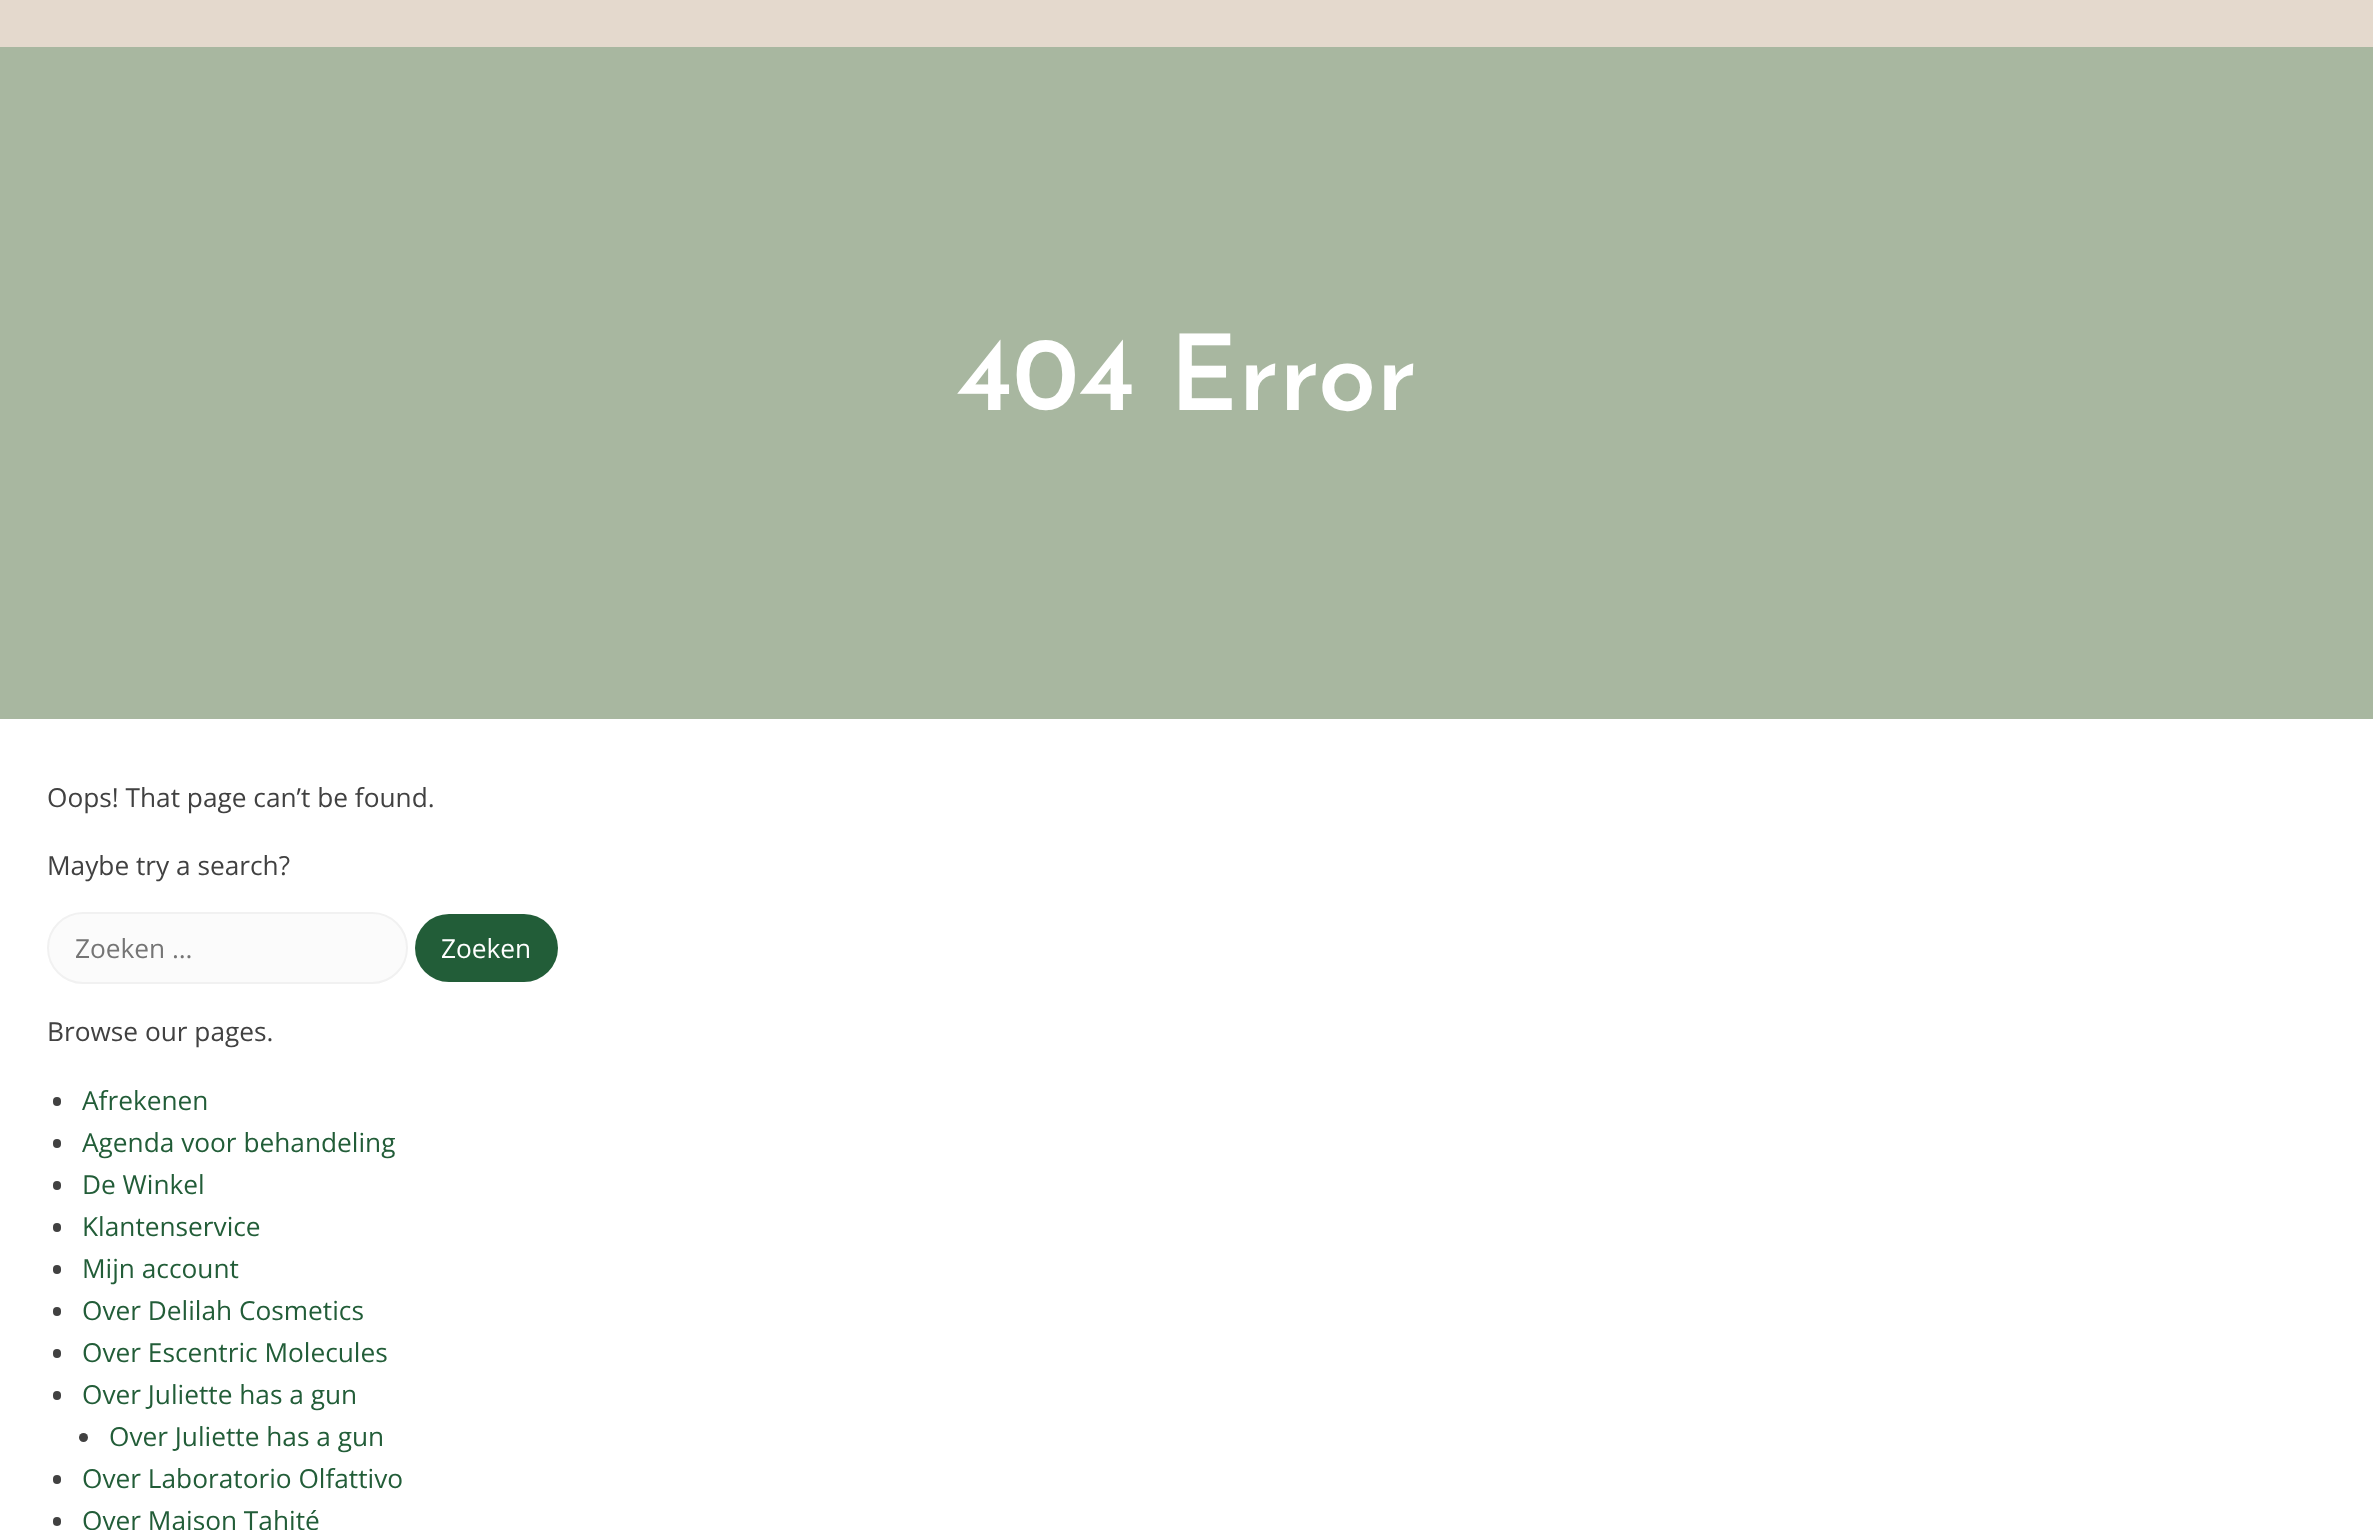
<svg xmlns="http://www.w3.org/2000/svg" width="2373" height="1530">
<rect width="100%" height="100%" fill="#fff"/>
<rect width="2373" height="47" fill="#e4d9cd"/>
<rect y="47" width="2373" height="672" fill="#a8b7a0"/>
<text x="956" y="410" style="font-family:Josefin Sans;font-size:105px;font-weight:600;fill:#fff">404 Error</text>
<text x="47" y="807" style="font-family:Open Sans;font-size:26.25px;fill:#414141">Oops! That page can’t be found.</text>
<text x="47" y="875" style="font-family:Open Sans;font-size:26.25px;fill:#414141">Maybe try a search?</text>
<rect x="48" y="913" width="359" height="70" rx="35" fill="#fbfbfb" stroke="#f1f1f1" stroke-width="2"/>
<text x="75" y="958" style="font-family:Open Sans;font-size:26.25px;fill:#757575">Zoeken …</text>
<rect x="415" y="914" width="143" height="68" rx="34" fill="#225d38"/>
<text x="441" y="958" style="font-family:Open Sans;font-size:26.25px;fill:#fff">Zoeken</text>
<text x="47" y="1041" style="font-family:Open Sans;font-size:26.25px;fill:#414141">Browse our pages.</text>
<rect x="53" y="1097" width="8" height="9" rx="4" fill="#414141"/>
<text x="82" y="1110" style="font-family:Open Sans;font-size:26.25px;fill:#225d38">Afrekenen</text>
<rect x="53" y="1139" width="8" height="9" rx="4" fill="#414141"/>
<text x="82" y="1152" style="font-family:Open Sans;font-size:26.25px;fill:#225d38">Agenda voor behandeling</text>
<rect x="53" y="1181" width="8" height="9" rx="4" fill="#414141"/>
<text x="82" y="1194" style="font-family:Open Sans;font-size:26.25px;fill:#225d38">De Winkel</text>
<rect x="53" y="1223" width="8" height="9" rx="4" fill="#414141"/>
<text x="82" y="1236" style="font-family:Open Sans;font-size:26.25px;fill:#225d38">Klantenservice</text>
<rect x="53" y="1265" width="8" height="9" rx="4" fill="#414141"/>
<text x="82" y="1278" style="font-family:Open Sans;font-size:26.25px;fill:#225d38">Mijn account</text>
<rect x="53" y="1307" width="8" height="9" rx="4" fill="#414141"/>
<text x="82" y="1320" style="font-family:Open Sans;font-size:26.25px;fill:#225d38">Over Delilah Cosmetics</text>
<rect x="53" y="1349" width="8" height="9" rx="4" fill="#414141"/>
<text x="82" y="1362" style="font-family:Open Sans;font-size:26.25px;fill:#225d38">Over Escentric Molecules</text>
<rect x="53" y="1391" width="8" height="9" rx="4" fill="#414141"/>
<text x="82" y="1404" style="font-family:Open Sans;font-size:26.25px;fill:#225d38">Over Juliette has a gun</text>
<circle cx="83.5" cy="1437.5" r="4.5" fill="#414141"/>
<text x="109" y="1446" style="font-family:Open Sans;font-size:26.25px;fill:#225d38">Over Juliette has a gun</text>
<rect x="53" y="1475" width="8" height="9" rx="4" fill="#414141"/>
<text x="82" y="1488" style="font-family:Open Sans;font-size:26.25px;fill:#225d38">Over Laboratorio Olfattivo</text>
<rect x="53" y="1517" width="8" height="9" rx="4" fill="#414141"/>
<text x="82" y="1530" style="font-family:Open Sans;font-size:26.25px;fill:#225d38">Over Maison Tahité</text>
</svg>
